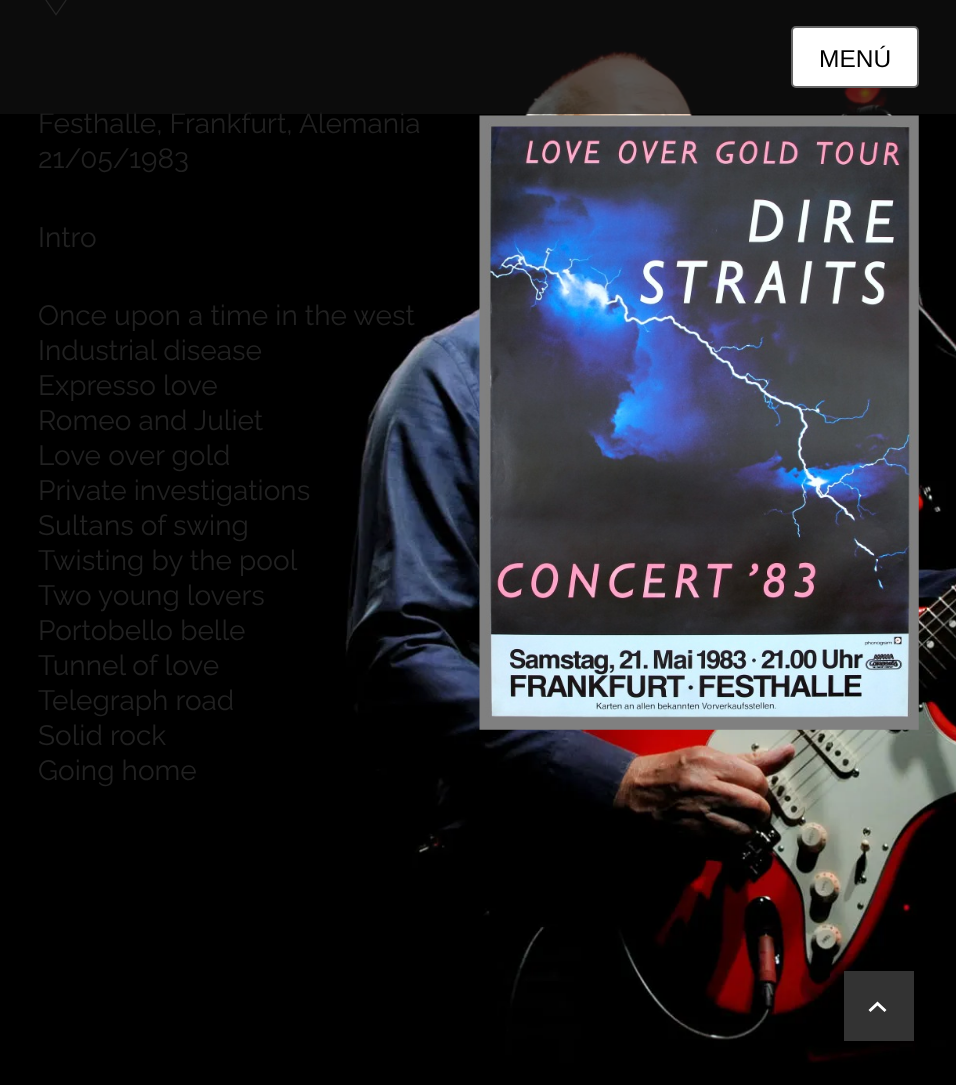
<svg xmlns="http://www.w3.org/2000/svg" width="956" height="1085">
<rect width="100%" height="100%" fill="#000"/>
<image x="345" y="47" width="611" height="1016" href="media/1.png"/>
<image x="45" y="0" width="22" height="16" href="media/2.png"/>
<text x="38" y="133" style="font-family:Raleway;font-size:28px;fill:#212121">Festhalle, Frankfurt, Alemania</text>
<rect width="956" height="114" fill="#111111b3"/>
<rect x="792" y="27" width="126" height="60" rx="4" fill="#fff" stroke="#666" stroke-width="2"/>
<text x="819" y="67" style="font-family:Liberation Sans;font-size:24.5px;fill:#000">MENÚ</text>
<image x="479" y="115" width="440" height="615" href="media/3.png"/>
<text x="38" y="168" style="font-family:Raleway;font-size:28px;fill:#212121">21/05/1983</text>
<text x="38" y="247" style="font-family:Raleway;font-size:28px;fill:#212121">Intro</text>
<text x="38" y="325" style="font-family:Raleway;font-size:28px;fill:#212121">Once upon a time in the west</text>
<text x="38" y="360" style="font-family:Raleway;font-size:28px;fill:#212121">Industrial disease</text>
<text x="38" y="395" style="font-family:Raleway;font-size:28px;fill:#212121">Expresso love</text>
<text x="38" y="430" style="font-family:Raleway;font-size:28px;fill:#212121">Romeo and Juliet</text>
<text x="38" y="465" style="font-family:Raleway;font-size:28px;fill:#212121">Love over gold</text>
<text x="38" y="500" style="font-family:Raleway;font-size:28px;fill:#212121">Private investigations</text>
<text x="38" y="535" style="font-family:Raleway;font-size:28px;fill:#212121">Sultans of swing</text>
<text x="38" y="570" style="font-family:Raleway;font-size:28px;fill:#212121">Twisting by the pool</text>
<text x="38" y="605" style="font-family:Raleway;font-size:28px;fill:#212121">Two young lovers</text>
<text x="38" y="640" style="font-family:Raleway;font-size:28px;fill:#212121">Portobello belle</text>
<text x="38" y="675" style="font-family:Raleway;font-size:28px;fill:#212121">Tunnel of love</text>
<text x="38" y="710" style="font-family:Raleway;font-size:28px;fill:#212121">Telegraph road</text>
<text x="38" y="745" style="font-family:Raleway;font-size:28px;fill:#212121">Solid rock</text>
<text x="38" y="780" style="font-family:Raleway;font-size:28px;fill:#212121">Going home</text>
<rect x="844" y="971" width="70" height="70" fill="#333"/>
<path d="M884.5 1012l-7-6.5l-7 6.5l-2-2l9-8.5l9 8.5z" fill="#fff"/>
</svg>
